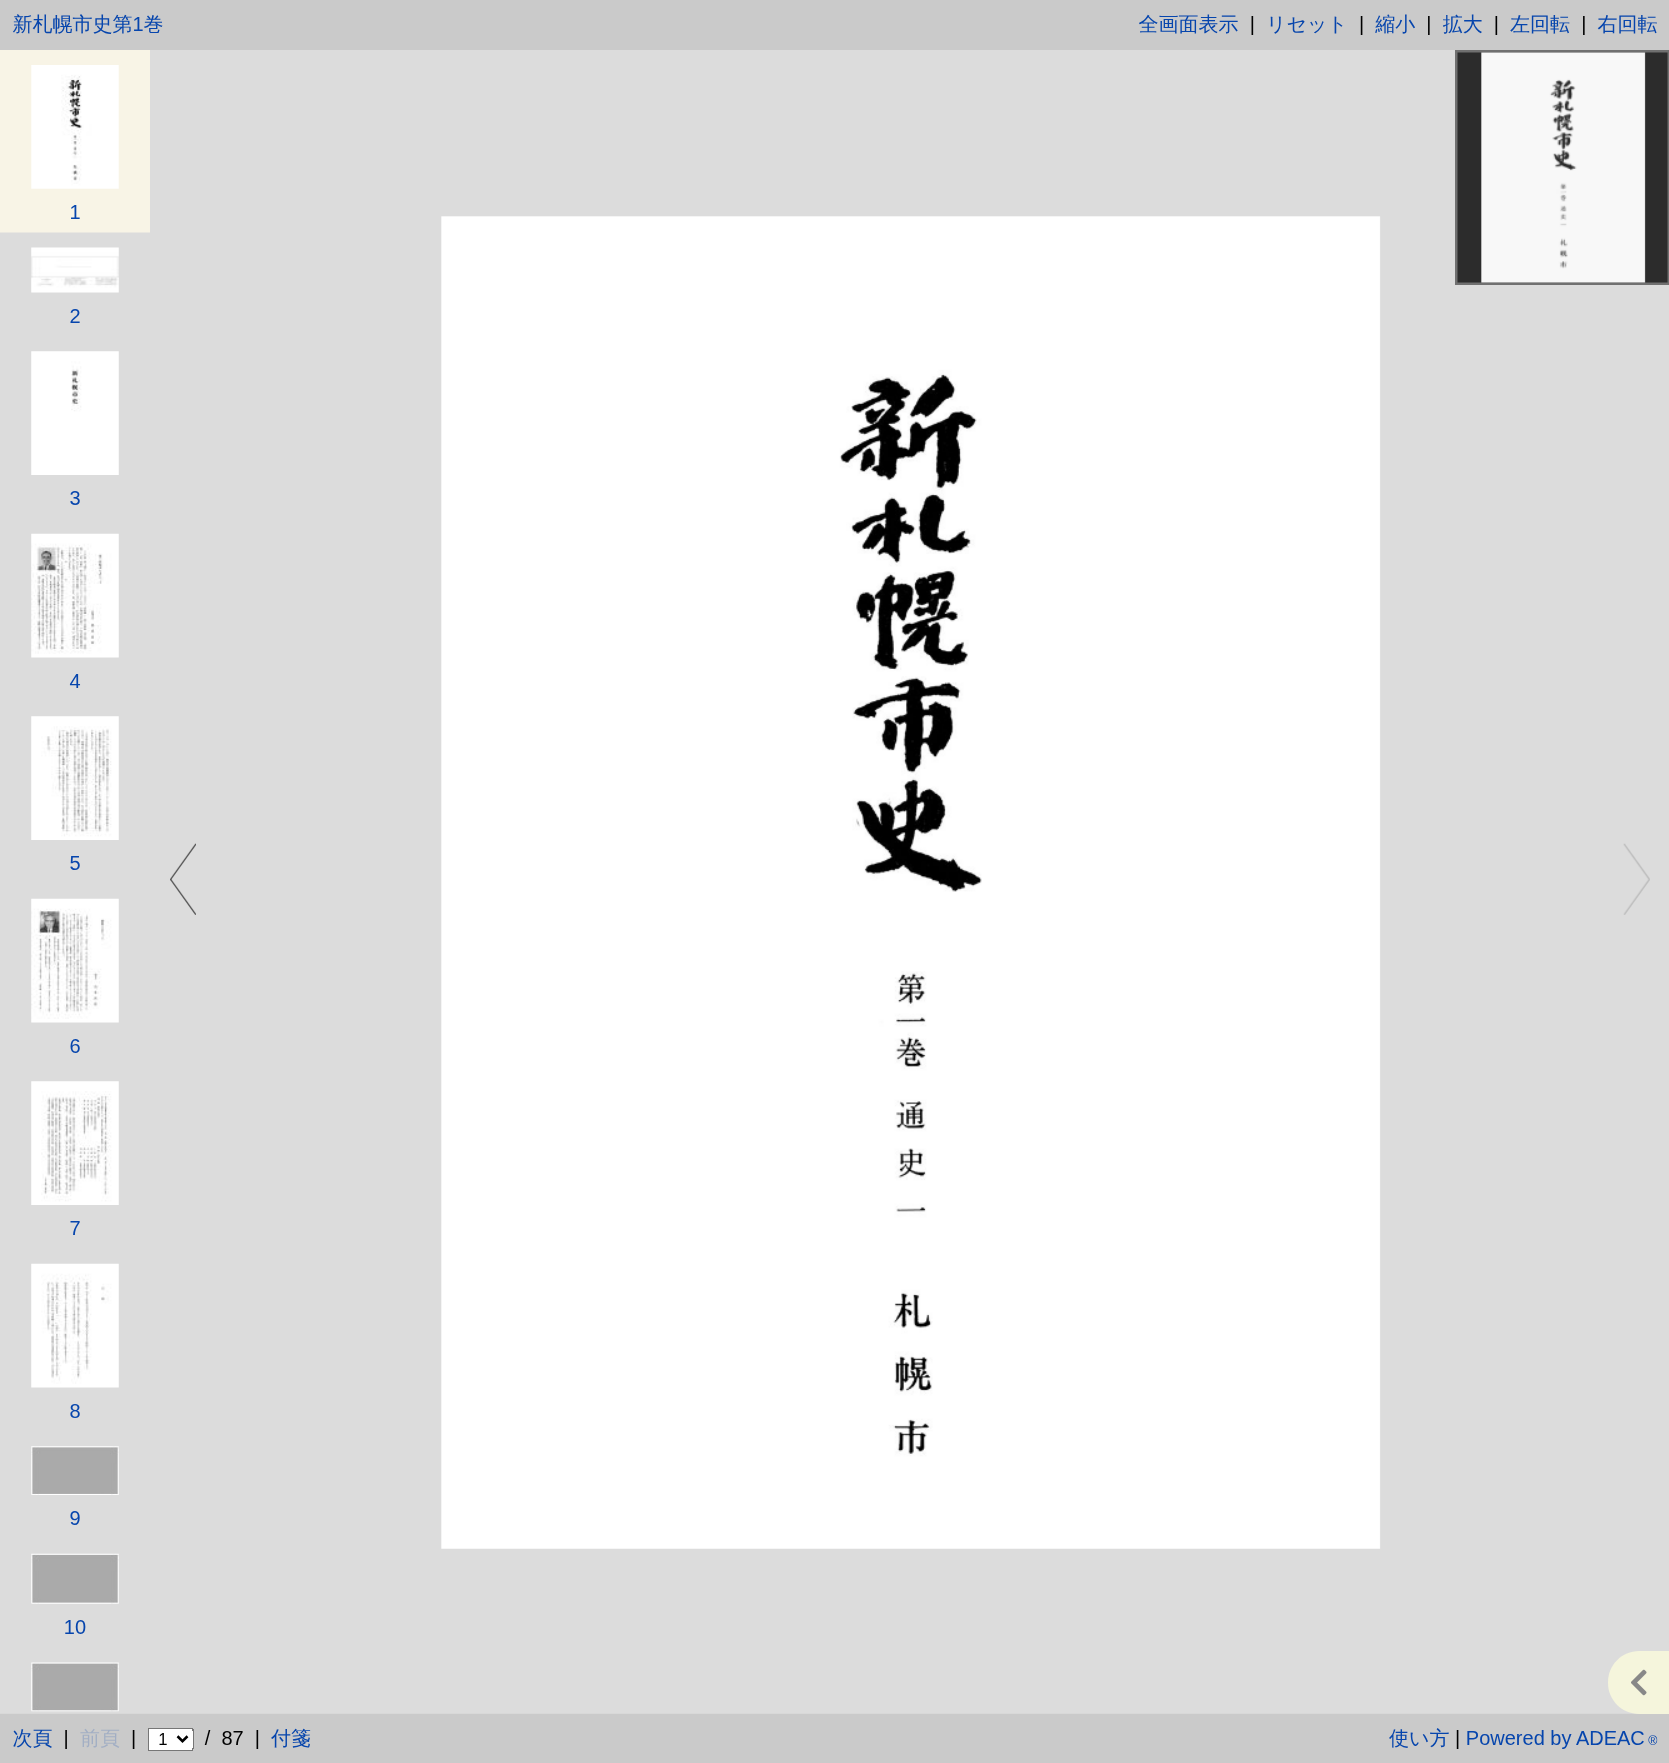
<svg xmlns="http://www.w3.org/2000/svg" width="1669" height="1763">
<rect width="100%" height="100%" fill="#fff"/>
<image x="0" y="0" width="1669" height="1763" href="media/1.png"/>
<path d="M1639 1651h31v63h-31c-17 0-31-14-31-31v-1c0-17 14-31 31-31z" fill="#f5f5dc"/>
<image x="1631" y="1669" width="16" height="27" href="media/2.png"/>
</svg>
